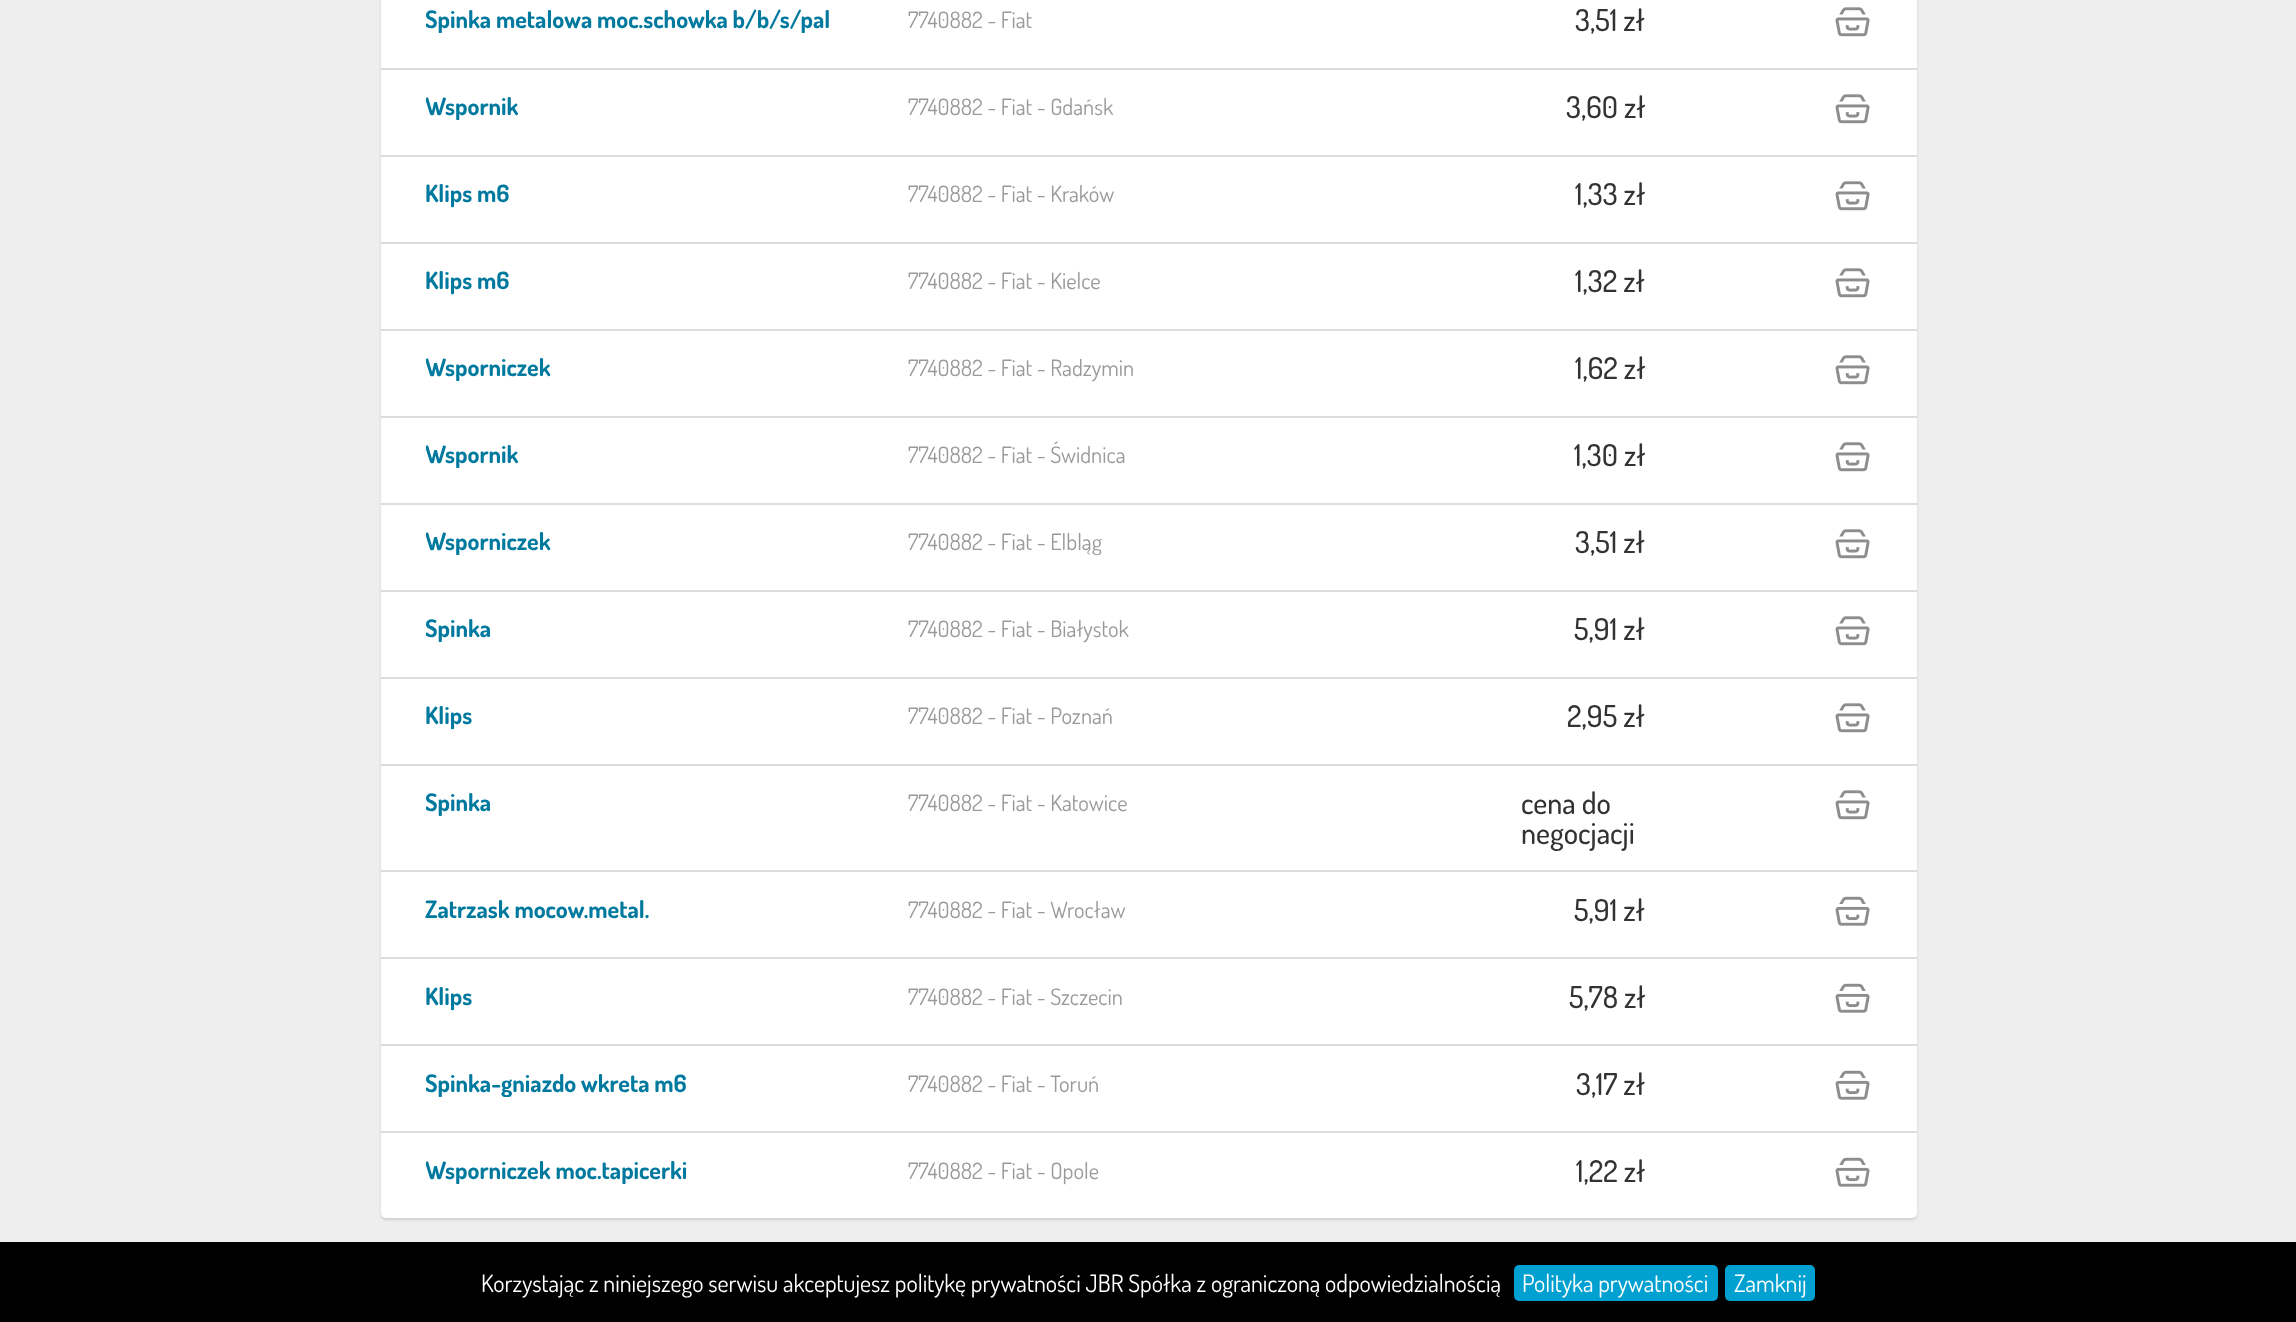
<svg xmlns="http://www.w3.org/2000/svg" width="2296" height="1322">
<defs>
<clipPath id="clip1"><rect x="426" y="5" width="482" height="28"/></clipPath>
<clipPath id="clip2"><rect x="426" y="92" width="482" height="28"/></clipPath>
<clipPath id="clip3"><rect x="426" y="353" width="482" height="28"/></clipPath>
<clipPath id="clip4"><rect x="426" y="440" width="482" height="28"/></clipPath>
<clipPath id="clip5"><rect x="426" y="527" width="482" height="28"/></clipPath>
<clipPath id="clip6"><rect x="426" y="614" width="482" height="28"/></clipPath>
<clipPath id="clip7"><rect x="426" y="788" width="482" height="28"/></clipPath>
<clipPath id="clip8"><rect x="426" y="1068" width="482" height="29"/></clipPath>
<clipPath id="clip9"><rect x="426" y="1155" width="482" height="29"/></clipPath>
</defs>
<rect width="100%" height="100%" fill="#eee"/>
<rect x="381" y="-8" width="1536" height="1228" rx="5" fill="#b4b4b480" filter="blur(1px)"/>
<rect x="381" y="-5" width="1536" height="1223" rx="5" fill="#fff"/>
<rect x="381" y="68" width="1536" height="2" fill="#ddd"/>
<g clip-path="url(#clip1)">
<text x="425" y="28" style="font-family:Dosis;font-size:24px;font-weight:bold;fill:#00799f">Spinka metalowa moc.schowka b/b/s/pal</text>
</g>
<text x="908" y="28" style="font-family:Dosis;font-size:22.5px;fill:#9a9a9a">7740882 - Fiat</text>
<text x="1575" y="31" style="font-family:Dosis;font-size:30px;font-weight:500;fill:#333">3,51 zł</text>
<image x="1835" y="7" width="35" height="30" href="media/1.png"/>
<rect x="381" y="155" width="1536" height="2" fill="#ddd"/>
<g clip-path="url(#clip2)">
<text x="425" y="115" style="font-family:Dosis;font-size:24px;font-weight:bold;fill:#00799f">Wspornik</text>
</g>
<text x="908" y="115" style="font-family:Dosis;font-size:22.5px;fill:#9a9a9a">7740882 - Fiat - Gdańsk</text>
<text x="1566" y="118" style="font-family:Dosis;font-size:30px;font-weight:500;fill:#333">3,60 zł</text>
<image x="1835" y="94" width="35" height="30" href="media/1.png"/>
<rect x="381" y="242" width="1536" height="2" fill="#ddd"/>
<text x="425" y="202" style="font-family:Dosis;font-size:24px;font-weight:bold;fill:#00799f">Klips m6</text>
<text x="908" y="202" style="font-family:Dosis;font-size:22.5px;fill:#9a9a9a">7740882 - Fiat - Kraków</text>
<text x="1575" y="205" style="font-family:Dosis;font-size:30px;font-weight:500;fill:#333">1,33 zł</text>
<image x="1835" y="181" width="35" height="30" href="media/1.png"/>
<rect x="381" y="329" width="1536" height="2" fill="#ddd"/>
<text x="425" y="289" style="font-family:Dosis;font-size:24px;font-weight:bold;fill:#00799f">Klips m6</text>
<text x="908" y="289" style="font-family:Dosis;font-size:22.5px;fill:#9a9a9a">7740882 - Fiat - Kielce</text>
<text x="1575" y="292" style="font-family:Dosis;font-size:30px;font-weight:500;fill:#333">1,32 zł</text>
<image x="1835" y="268" width="35" height="30" href="media/1.png"/>
<rect x="381" y="416" width="1536" height="2" fill="#ddd"/>
<g clip-path="url(#clip3)">
<text x="425" y="376" style="font-family:Dosis;font-size:24px;font-weight:bold;fill:#00799f">Wsporniczek</text>
</g>
<text x="908" y="376" style="font-family:Dosis;font-size:22.5px;fill:#9a9a9a">7740882 - Fiat - Radzymin</text>
<text x="1575" y="379" style="font-family:Dosis;font-size:30px;font-weight:500;fill:#333">1,62 zł</text>
<image x="1835" y="355" width="35" height="30" href="media/1.png"/>
<rect x="381" y="503" width="1536" height="2" fill="#ddd"/>
<g clip-path="url(#clip4)">
<text x="425" y="463" style="font-family:Dosis;font-size:24px;font-weight:bold;fill:#00799f">Wspornik</text>
</g>
<text x="908" y="463" style="font-family:Dosis;font-size:22.5px;fill:#9a9a9a">7740882 - Fiat - Świdnica</text>
<text x="1574" y="466" style="font-family:Dosis;font-size:30px;font-weight:500;fill:#333">1,30 zł</text>
<image x="1835" y="442" width="35" height="30" href="media/1.png"/>
<rect x="381" y="590" width="1536" height="2" fill="#ddd"/>
<g clip-path="url(#clip5)">
<text x="425" y="550" style="font-family:Dosis;font-size:24px;font-weight:bold;fill:#00799f">Wsporniczek</text>
</g>
<text x="908" y="550" style="font-family:Dosis;font-size:22.5px;fill:#9a9a9a">7740882 - Fiat - Elbląg</text>
<text x="1575" y="553" style="font-family:Dosis;font-size:30px;font-weight:500;fill:#333">3,51 zł</text>
<image x="1835" y="529" width="35" height="30" href="media/1.png"/>
<rect x="381" y="677" width="1536" height="2" fill="#ddd"/>
<g clip-path="url(#clip6)">
<text x="425" y="637" style="font-family:Dosis;font-size:24px;font-weight:bold;fill:#00799f">Spinka</text>
</g>
<text x="908" y="637" style="font-family:Dosis;font-size:22.5px;fill:#9a9a9a">7740882 - Fiat - Białystok</text>
<text x="1574" y="640" style="font-family:Dosis;font-size:30px;font-weight:500;fill:#333">5,91 zł</text>
<image x="1835" y="616" width="35" height="30" href="media/1.png"/>
<rect x="381" y="764" width="1536" height="2" fill="#ddd"/>
<text x="425" y="724" style="font-family:Dosis;font-size:24px;font-weight:bold;fill:#00799f">Klips</text>
<text x="908" y="724" style="font-family:Dosis;font-size:22.5px;fill:#9a9a9a">7740882 - Fiat - Poznań</text>
<text x="1567" y="727" style="font-family:Dosis;font-size:30px;font-weight:500;fill:#333">2,95 zł</text>
<image x="1835" y="703" width="35" height="30" href="media/1.png"/>
<rect x="381" y="870" width="1536" height="2" fill="#ddd"/>
<g clip-path="url(#clip7)">
<text x="425" y="811" style="font-family:Dosis;font-size:24px;font-weight:bold;fill:#00799f">Spinka</text>
</g>
<text x="908" y="811" style="font-family:Dosis;font-size:22.5px;fill:#9a9a9a">7740882 - Fiat - Katowice</text>
<text x="1521" y="814" style="font-family:Dosis;font-size:30px;font-weight:500;fill:#333">cena do</text>
<text x="1521" y="844" style="font-family:Dosis;font-size:30px;font-weight:500;fill:#333">negocjacji</text>
<image x="1835" y="790" width="35" height="30" href="media/1.png"/>
<rect x="381" y="957" width="1536" height="2" fill="#ddd"/>
<text x="425" y="918" style="font-family:Dosis;font-size:24px;font-weight:bold;fill:#00799f">Zatrzask mocow.metal.</text>
<text x="908" y="918" style="font-family:Dosis;font-size:22.5px;fill:#9a9a9a">7740882 - Fiat - Wrocław</text>
<text x="1574" y="921" style="font-family:Dosis;font-size:30px;font-weight:500;fill:#333">5,91 zł</text>
<image x="1835" y="896" width="35" height="30" href="media/2.png"/>
<rect x="381" y="1044" width="1536" height="2" fill="#ddd"/>
<text x="425" y="1005" style="font-family:Dosis;font-size:24px;font-weight:bold;fill:#00799f">Klips</text>
<text x="908" y="1005" style="font-family:Dosis;font-size:22.5px;fill:#9a9a9a">7740882 - Fiat - Szczecin</text>
<text x="1569" y="1008" style="font-family:Dosis;font-size:30px;font-weight:500;fill:#333">5,78 zł</text>
<image x="1835" y="983" width="35" height="30" href="media/2.png"/>
<rect x="381" y="1131" width="1536" height="2" fill="#ddd"/>
<g clip-path="url(#clip8)">
<text x="425" y="1092" style="font-family:Dosis;font-size:24px;font-weight:bold;fill:#00799f">Spinka-gniazdo wkreta m6</text>
</g>
<text x="908" y="1092" style="font-family:Dosis;font-size:22.5px;fill:#9a9a9a">7740882 - Fiat - Toruń</text>
<text x="1576" y="1095" style="font-family:Dosis;font-size:30px;font-weight:500;fill:#333">3,17 zł</text>
<image x="1835" y="1070" width="35" height="30" href="media/2.png"/>
<g clip-path="url(#clip9)">
<text x="425" y="1179" style="font-family:Dosis;font-size:24px;font-weight:bold;fill:#00799f">Wsporniczek moc.tapicerki</text>
</g>
<text x="908" y="1179" style="font-family:Dosis;font-size:22.5px;fill:#9a9a9a">7740882 - Fiat - Opole</text>
<text x="1576" y="1182" style="font-family:Dosis;font-size:30px;font-weight:500;fill:#333">1,22 zł</text>
<image x="1835" y="1157" width="35" height="30" href="media/2.png"/>
<rect y="1242" width="2296" height="80" fill="#000"/>
<text x="481" y="1292" style="font-family:Dosis;font-size:24px;fill:#fff">Korzystając z niniejszego serwisu akceptujesz politykę prywatności JBR Spółka z ograniczoną odpowiedzialnością</text>
<rect x="1514" y="1265" width="204" height="36" rx="5" fill="#00a0d1"/>
<text x="1522" y="1292" style="font-family:Dosis;font-size:24px;fill:#fff">Polityka prywatności</text>
<rect x="1725" y="1265" width="90" height="36" rx="5" fill="#00a0d1"/>
<text x="1734" y="1292" style="font-family:Dosis;font-size:24px;fill:#fff">Zamknij</text>
</svg>
